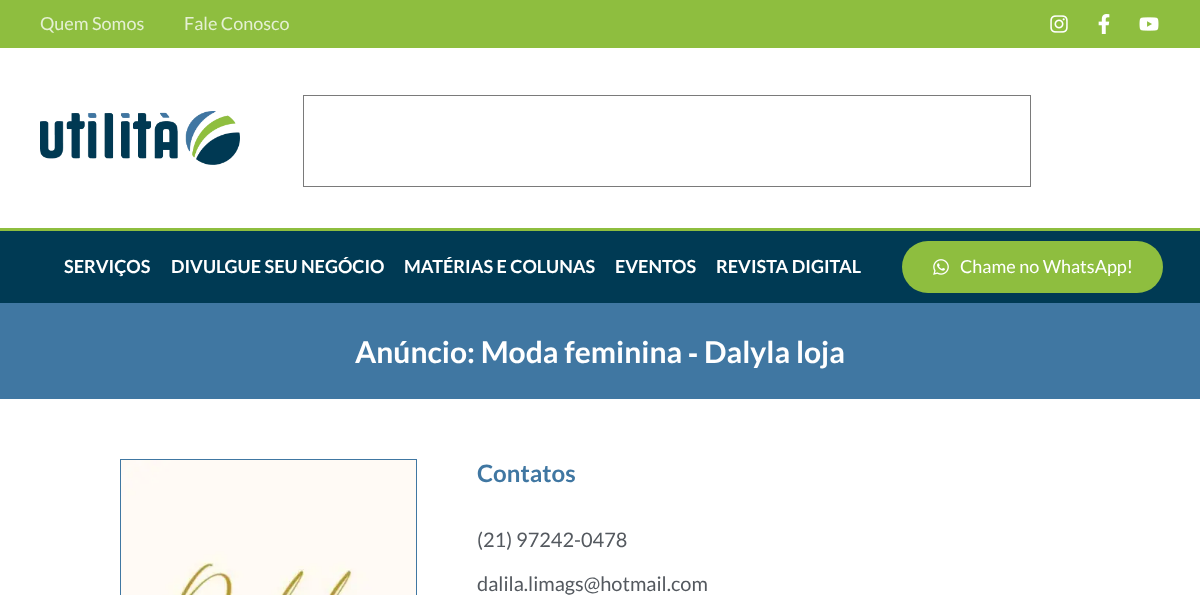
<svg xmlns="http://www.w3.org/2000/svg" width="1200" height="595">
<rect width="100%" height="100%" fill="#fff"/>
<rect width="1200" height="48" fill="#8ebe3f"/>
<text x="40" y="30" style="font-family:Lato;font-size:18px;fill:#e5f0d3">Quem Somos</text>
<text x="184" y="30" style="font-family:Lato;font-size:18px;fill:#e5f0d3">Fale Conosco</text>
<image x="1050" y="15" width="18" height="18" href="media/1.png"/>
<image x="1098" y="14" width="12" height="20" href="media/2.png"/>
<image x="1139" y="17" width="20" height="14" href="media/3.png"/>
<image x="40" y="111" width="200" height="54" href="media/4.png"/>
<rect x="303.5" y="95.5" width="727" height="91" fill="none" stroke="#7a7a7a"/>
<rect y="231" width="1200" height="72" fill="#003a54"/>
<rect y="228" width="1200" height="3" fill="#8ebe3f"/>
<text x="64" y="273" style="font-family:Lato;font-size:18px;font-weight:bold;fill:#fff">SERVIÇOS</text>
<text x="171" y="273" style="font-family:Lato;font-size:18px;font-weight:bold;fill:#fff">DIVULGUE SEU NEGÓCIO</text>
<text x="404" y="273" style="font-family:Lato;font-size:18px;font-weight:bold;fill:#fff">MATÉRIAS E COLUNAS</text>
<text x="615" y="273" style="font-family:Lato;font-size:18px;font-weight:bold;fill:#fff">EVENTOS</text>
<text x="716" y="273" style="font-family:Lato;font-size:18px;font-weight:bold;fill:#fff">REVISTA DIGITAL</text>
<rect x="902" y="241" width="261" height="52" rx="26" fill="#8ebe3f"/>
<image x="933" y="259" width="16" height="16" href="media/5.png"/>
<text x="960" y="273" style="font-family:Lato;font-size:18px;fill:#fff">Chame no WhatsApp!</text>
<rect y="303" width="1200" height="96" fill="#4077a2"/>
<text x="355" y="363" style="font-family:Lato;font-size:30px;font-weight:bold;fill:#fff">Anúncio: Moda feminina</text>
<text x="688" y="363" style="font-family:Liberation Sans;font-size:30px;font-weight:bold;fill:#fff">‐</text>
<text x="704" y="363" style="font-family:Lato;font-size:30px;font-weight:bold;fill:#fff">Dalyla loja</text>
<rect x="120.5" y="459.5" width="296" height="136" fill="none" stroke="#4077a2"/>
<image x="121" y="460" width="295" height="135" href="media/6.png"/>
<text x="477" y="482" style="font-family:Lato;font-size:24px;font-weight:bold;fill:#4077a2">Contatos</text>
<text x="477" y="547" style="font-family:Lato;font-size:20px;fill:#54595f">(21) 97242-0478</text>
<text x="477" y="591" style="font-family:Lato;font-size:20px;fill:#54595f">dalila.limags@hotmail.com</text>
</svg>
